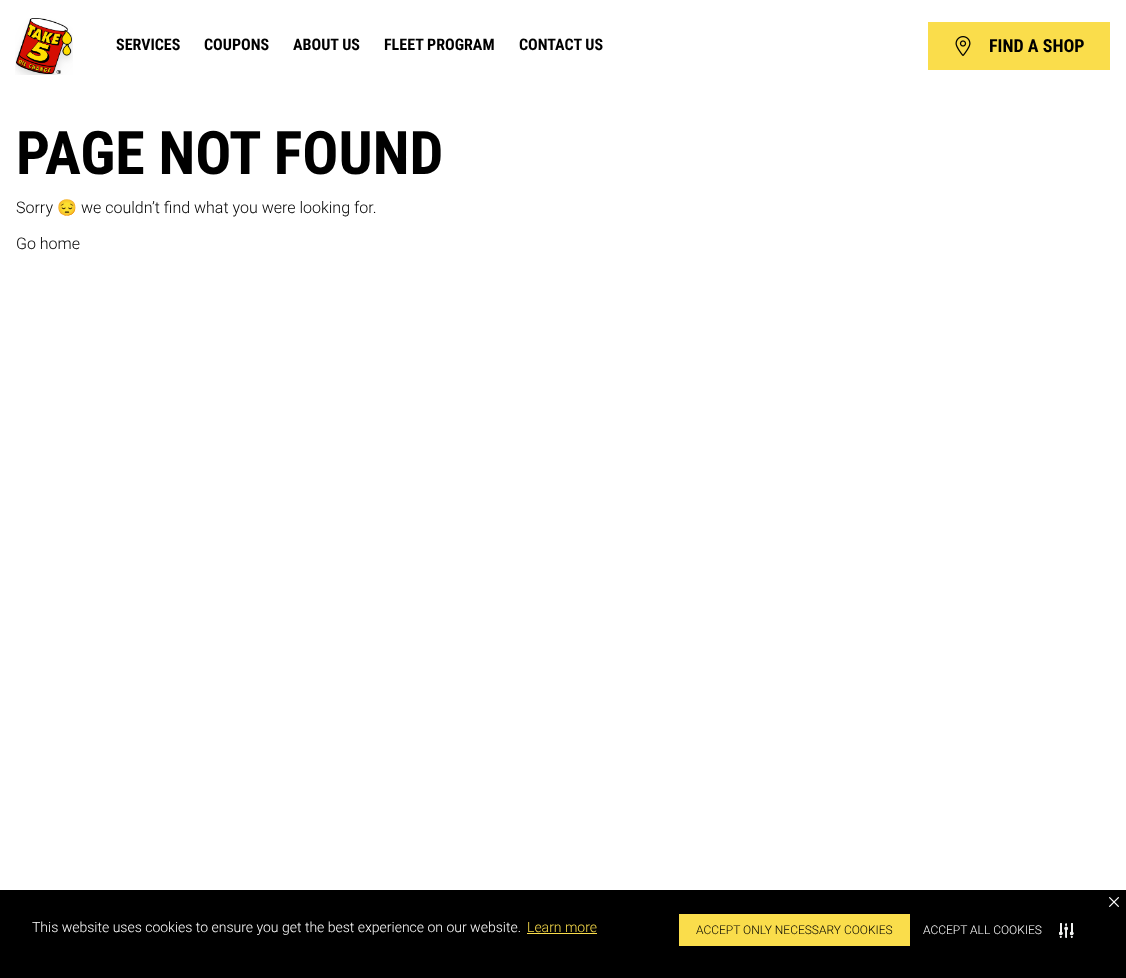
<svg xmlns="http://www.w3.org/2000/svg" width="1126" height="978">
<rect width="100%" height="100%" fill="#fff"/>
<image x="15" y="18" width="58" height="57" href="media/1.png"/>
<text x="116" y="50" style="font-family:Roboto Condensed;font-size:16px;font-weight:bold;fill:#000">SERVICES</text>
<text x="204" y="50" style="font-family:Roboto Condensed;font-size:16px;font-weight:bold;fill:#000">COUPONS</text>
<text x="293" y="50" style="font-family:Roboto Condensed;font-size:16px;font-weight:bold;fill:#000">ABOUT US</text>
<text x="384" y="50" style="font-family:Roboto Condensed;font-size:16px;font-weight:bold;fill:#000">FLEET PROGRAM</text>
<text x="519" y="50" style="font-family:Roboto Condensed;font-size:16px;font-weight:bold;fill:#000">CONTACT US</text>
<rect x="928" y="22" width="182" height="48" fill="#fadd4b"/>
<image x="955" y="36" width="16" height="20" href="media/2.png"/>
<text x="989" y="52" style="font-family:Roboto Condensed;font-size:18px;font-weight:bold;fill:#000">FIND A SHOP</text>
<text x="16" y="174" style="font-family:Roboto Condensed;font-size:60px;font-weight:bold;fill:#000">PAGE NOT FOUND</text>
<text x="16" y="213" style="font-family:Roboto;font-size:16px;font-weight:300;fill:#000">Sorry</text>
<text x="57" y="213" style="font-family:Noto Color Emoji;font-size:16px;fill:#000">😔</text>
<text x="81" y="213" style="font-family:Roboto;font-size:16px;font-weight:300;fill:#000">we couldn’t find what you were looking for.</text>
<text x="16" y="249" style="font-family:Roboto;font-size:16px;font-weight:300;fill:#000">Go home</text>
<rect y="890" width="1126" height="88" fill="#000"/>
<text x="32" y="932" style="font-family:Roboto;font-size:14px;font-weight:300;fill:#fff">This website uses cookies to ensure you get the best experience on our website.</text>
<text x="527" y="932" style="font-family:Roboto;font-size:14px;font-weight:300;fill:#fadd4b">Learn more</text>
<rect x="527" y="933" width="70" height="1" fill="#fadd4b"/>
<image x="1109" y="897" width="10" height="10" href="media/3.png"/>
<rect x="679" y="914" width="231" height="32" fill="#fadd4b"/>
<text x="696" y="934" style="font-family:Roboto;font-size:12px;font-weight:300;fill:#000">ACCEPT ONLY NECESSARY COOKIES</text>
<text x="923" y="934" style="font-family:Roboto;font-size:12px;font-weight:300;fill:#fff">ACCEPT ALL COOKIES</text>
<image x="1059" y="923" width="15" height="15" href="media/4.png"/>
</svg>
